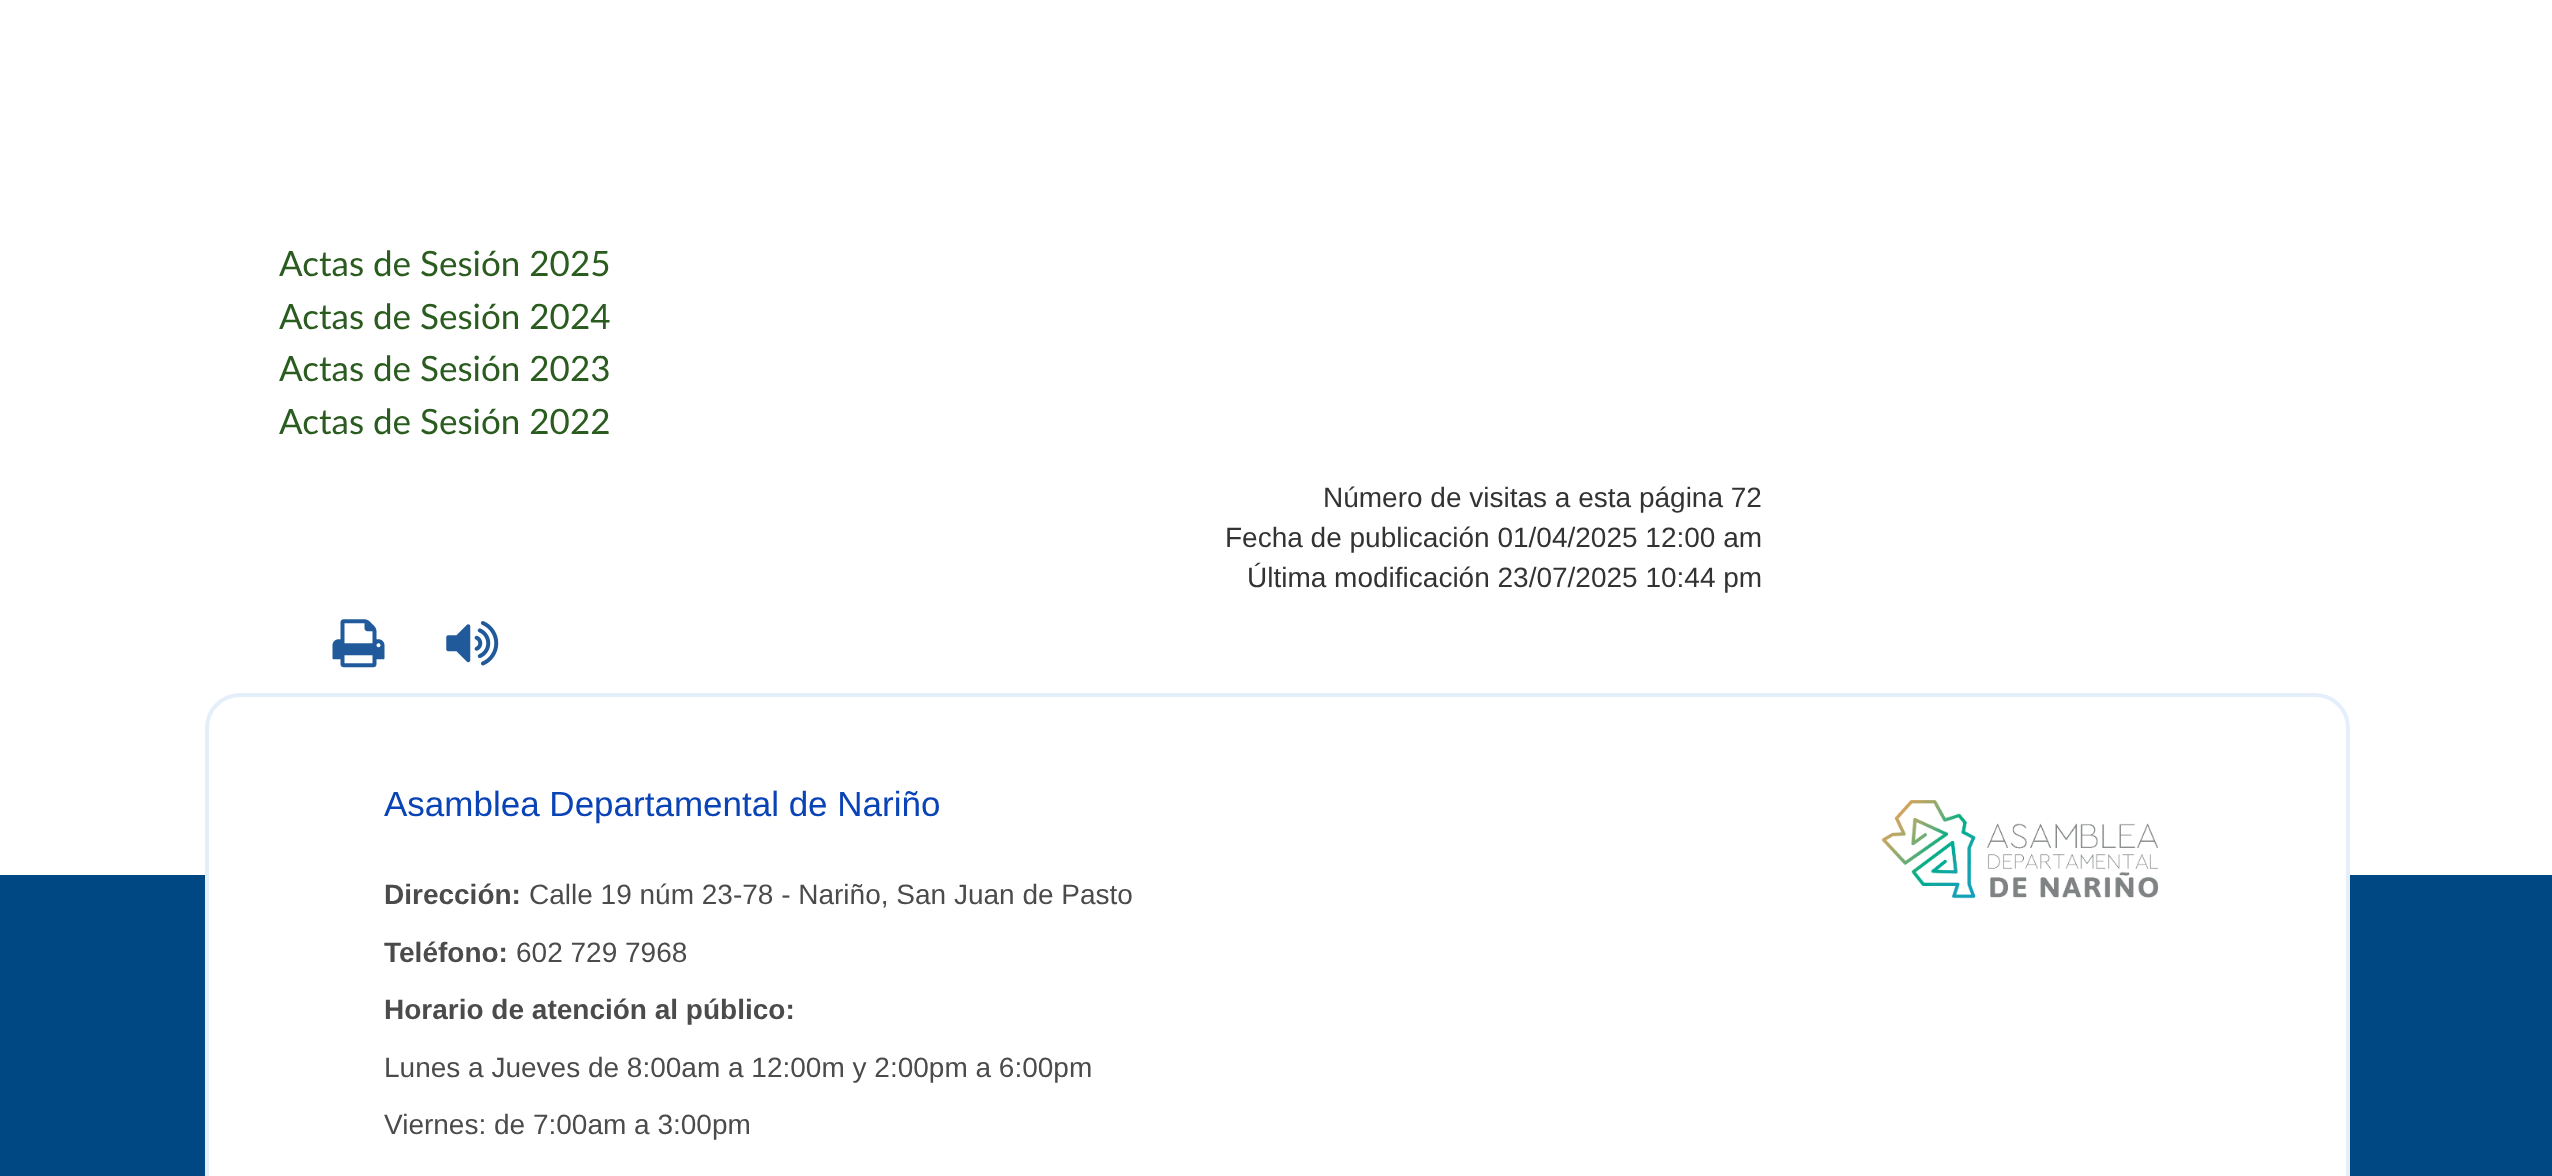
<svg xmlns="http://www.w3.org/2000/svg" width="2552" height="1176">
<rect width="100%" height="100%" fill="#fff"/>
<text x="279" y="276" style="font-family:Lato;font-size:35px;fill:#2b5c1f">Actas de Sesión 2025</text>
<text x="279" y="329" style="font-family:Lato;font-size:35px;fill:#2b5c1f">Actas de Sesión 2024</text>
<text x="279" y="381" style="font-family:Lato;font-size:35px;fill:#2b5c1f">Actas de Sesión 2023</text>
<text x="279" y="434" style="font-family:Lato;font-size:35px;fill:#2b5c1f">Actas de Sesión 2022</text>
<text x="1323" y="507" style="font-family:Liberation Sans;font-size:28px;fill:#333">Número de visitas a esta página 72</text>
<text x="1225" y="547" style="font-family:Liberation Sans;font-size:28px;fill:#333">Fecha de publicación 01/04/2025 12:00 am</text>
<text x="1247" y="587" style="font-family:Liberation Sans;font-size:28px;fill:#333">Última modificación 23/07/2025 10:44 pm</text>
<image x="332" y="619" width="53" height="49" href="media/1.png"/>
<image x="446" y="621" width="53" height="45" href="media/2.png"/>
<rect y="875" width="2552" height="301" fill="#004884"/>
<rect x="207" y="695" width="2141" height="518" rx="33" fill="#fff" stroke="#e5eefb" stroke-width="4"/>
<text x="384" y="816" style="font-family:Liberation Sans;font-size:35px;fill:#0943b5">Asamblea Departamental de Nariño</text>
<text x="384" y="904" style="font-family:Liberation Sans;font-size:28px;font-weight:bold;fill:#4b4b4b">Dirección:</text>
<text x="529" y="904" style="font-family:Liberation Sans;font-size:28px;fill:#4b4b4b">Calle 19 núm 23-78 - Nariño, San Juan de Pasto</text>
<text x="384" y="962" style="font-family:Liberation Sans;font-size:28px;font-weight:bold;fill:#4b4b4b">Teléfono:</text>
<text x="516" y="962" style="font-family:Liberation Sans;font-size:28px;fill:#4b4b4b">602 729 7968</text>
<text x="384" y="1019" style="font-family:Liberation Sans;font-size:28px;font-weight:bold;fill:#4b4b4b">Horario de atención al público:</text>
<text x="384" y="1077" style="font-family:Liberation Sans;font-size:28px;fill:#4b4b4b">Lunes a Jueves de 8:00am a 12:00m y 2:00pm a 6:00pm</text>
<text x="384" y="1134" style="font-family:Liberation Sans;font-size:28px;fill:#4b4b4b">Viernes: de 7:00am a 3:00pm</text>
<image x="1881" y="800" width="278" height="99" href="media/3.png"/>
</svg>
